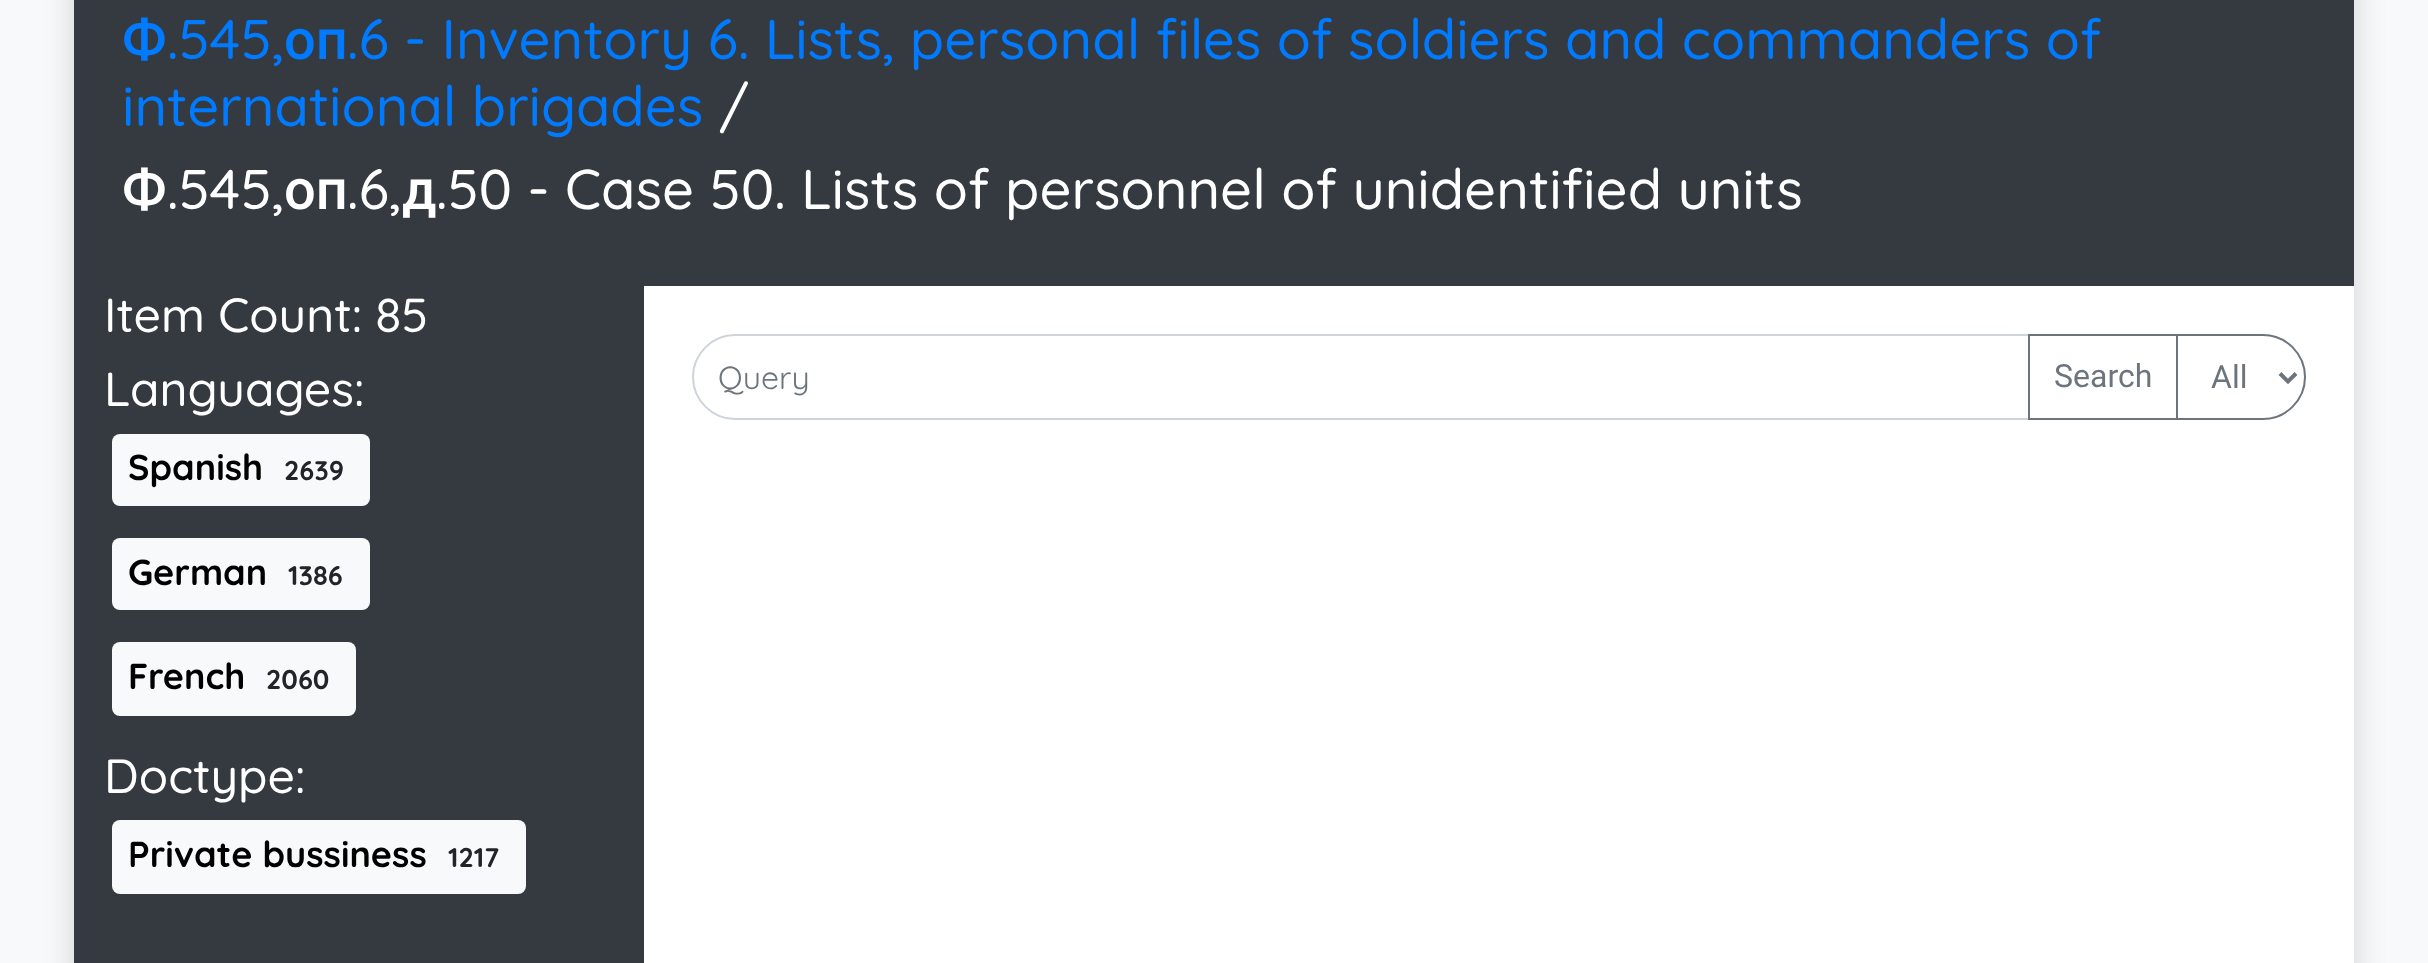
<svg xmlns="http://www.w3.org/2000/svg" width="2428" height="963">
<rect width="100%" height="100%" fill="#f8f9fa"/>
<rect x="74" y="-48" width="2280" height="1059" fill="#00000026" filter="blur(16px)"/>
<rect x="74" width="2280" height="286" fill="#343a40"/>
<text x="122" y="59" style="font-family:Roboto;font-size:56px;font-weight:500;fill:#007bff">Ф</text>
<text x="167" y="59" style="font-family:Quicksand;font-size:56px;font-weight:500;fill:#007bff">.545,</text>
<text x="284" y="59" style="font-family:Roboto;font-size:56px;font-weight:500;fill:#007bff">оп</text>
<text x="347" y="59" style="font-family:Quicksand;font-size:56px;font-weight:500;fill:#007bff">.6 - Inventory 6. Lists, personal files of soldiers and commanders of</text>
<text x="122" y="126" style="font-family:Quicksand;font-size:56px;font-weight:500;fill:#007bff">international brigades</text>
<text x="719" y="126" style="font-family:Quicksand;font-size:56px;font-weight:500;fill:#fff">/</text>
<text x="122" y="209" style="font-family:Roboto;font-size:56px;font-weight:500;fill:#fff">Ф</text>
<text x="167" y="209" style="font-family:Quicksand;font-size:56px;font-weight:500;fill:#fff">.545,</text>
<text x="284" y="209" style="font-family:Roboto;font-size:56px;font-weight:500;fill:#fff">оп</text>
<text x="347" y="209" style="font-family:Quicksand;font-size:56px;font-weight:500;fill:#fff">.6,</text>
<text x="402" y="209" style="font-family:Roboto;font-size:56px;font-weight:500;fill:#fff">д</text>
<text x="436" y="209" style="font-family:Quicksand;font-size:56px;font-weight:500;fill:#fff">.50 - Case 50. Lists of personnel of unidentified units</text>
<rect x="74" y="286" width="570" height="677" fill="#343a40"/>
<text x="104" y="332" style="font-family:Quicksand;font-size:48px;font-weight:500;fill:#fff">Item Count: 85</text>
<text x="104" y="406" style="font-family:Quicksand;font-size:48px;font-weight:500;fill:#fff">Languages:</text>
<rect x="112" y="434" width="258" height="72" rx="8" fill="#f8f9fa"/>
<text x="128" y="480" style="font-family:Quicksand;font-size:36px;font-weight:bold;fill:#000">Spanish</text>
<text x="284" y="480" style="font-family:Quicksand;font-size:27px;font-weight:bold;fill:#212529">2639</text>
<rect x="112" y="538" width="258" height="72" rx="8" fill="#f8f9fa"/>
<text x="128" y="585" style="font-family:Quicksand;font-size:36px;font-weight:bold;fill:#000">German</text>
<text x="288" y="585" style="font-family:Quicksand;font-size:27px;font-weight:bold;fill:#212529">1386</text>
<rect x="112" y="642" width="244" height="74" rx="8" fill="#f8f9fa"/>
<text x="128" y="689" style="font-family:Quicksand;font-size:36px;font-weight:bold;fill:#000">French</text>
<text x="266" y="689" style="font-family:Quicksand;font-size:27px;font-weight:bold;fill:#212529">2060</text>
<text x="104" y="793" style="font-family:Quicksand;font-size:48px;font-weight:500;fill:#fff">Doctype:</text>
<rect x="112" y="820" width="414" height="74" rx="8" fill="#f8f9fa"/>
<text x="128" y="867" style="font-family:Quicksand;font-size:36px;font-weight:bold;fill:#000">Private bussiness</text>
<text x="448" y="867" style="font-family:Quicksand;font-size:27px;font-weight:bold;fill:#212529">1217</text>
<rect x="644" y="286" width="1710" height="677" fill="#fff"/>
<path d="M735 335h1294v84h-1294c-23 0-42-19-42-42c0-23 19-42 42-42z" fill="none" stroke="#ced4da" stroke-width="2"/>
<text x="718" y="389" style="font-family:Quicksand;font-size:32px;fill:#6c757d">Query</text>
<rect x="2029" y="335" width="148" height="84" fill="none" stroke="#6c757d" stroke-width="2"/>
<text x="2054" y="387" style="font-family:Roboto;font-size:32px;fill:#6c757d">Search</text>
<path d="M2177 335h86c23 0 42 19 42 42c0 23-19 42-42 42h-86z" fill="none" stroke="#6c757d" stroke-width="2"/>
<path d="M2280 373.5l8 8l8-8" fill="none" stroke="#6c757d" stroke-width="4"/>
<text x="2211" y="388" style="font-family:Roboto;font-size:32px;fill:#6c757d">All</text>
</svg>
